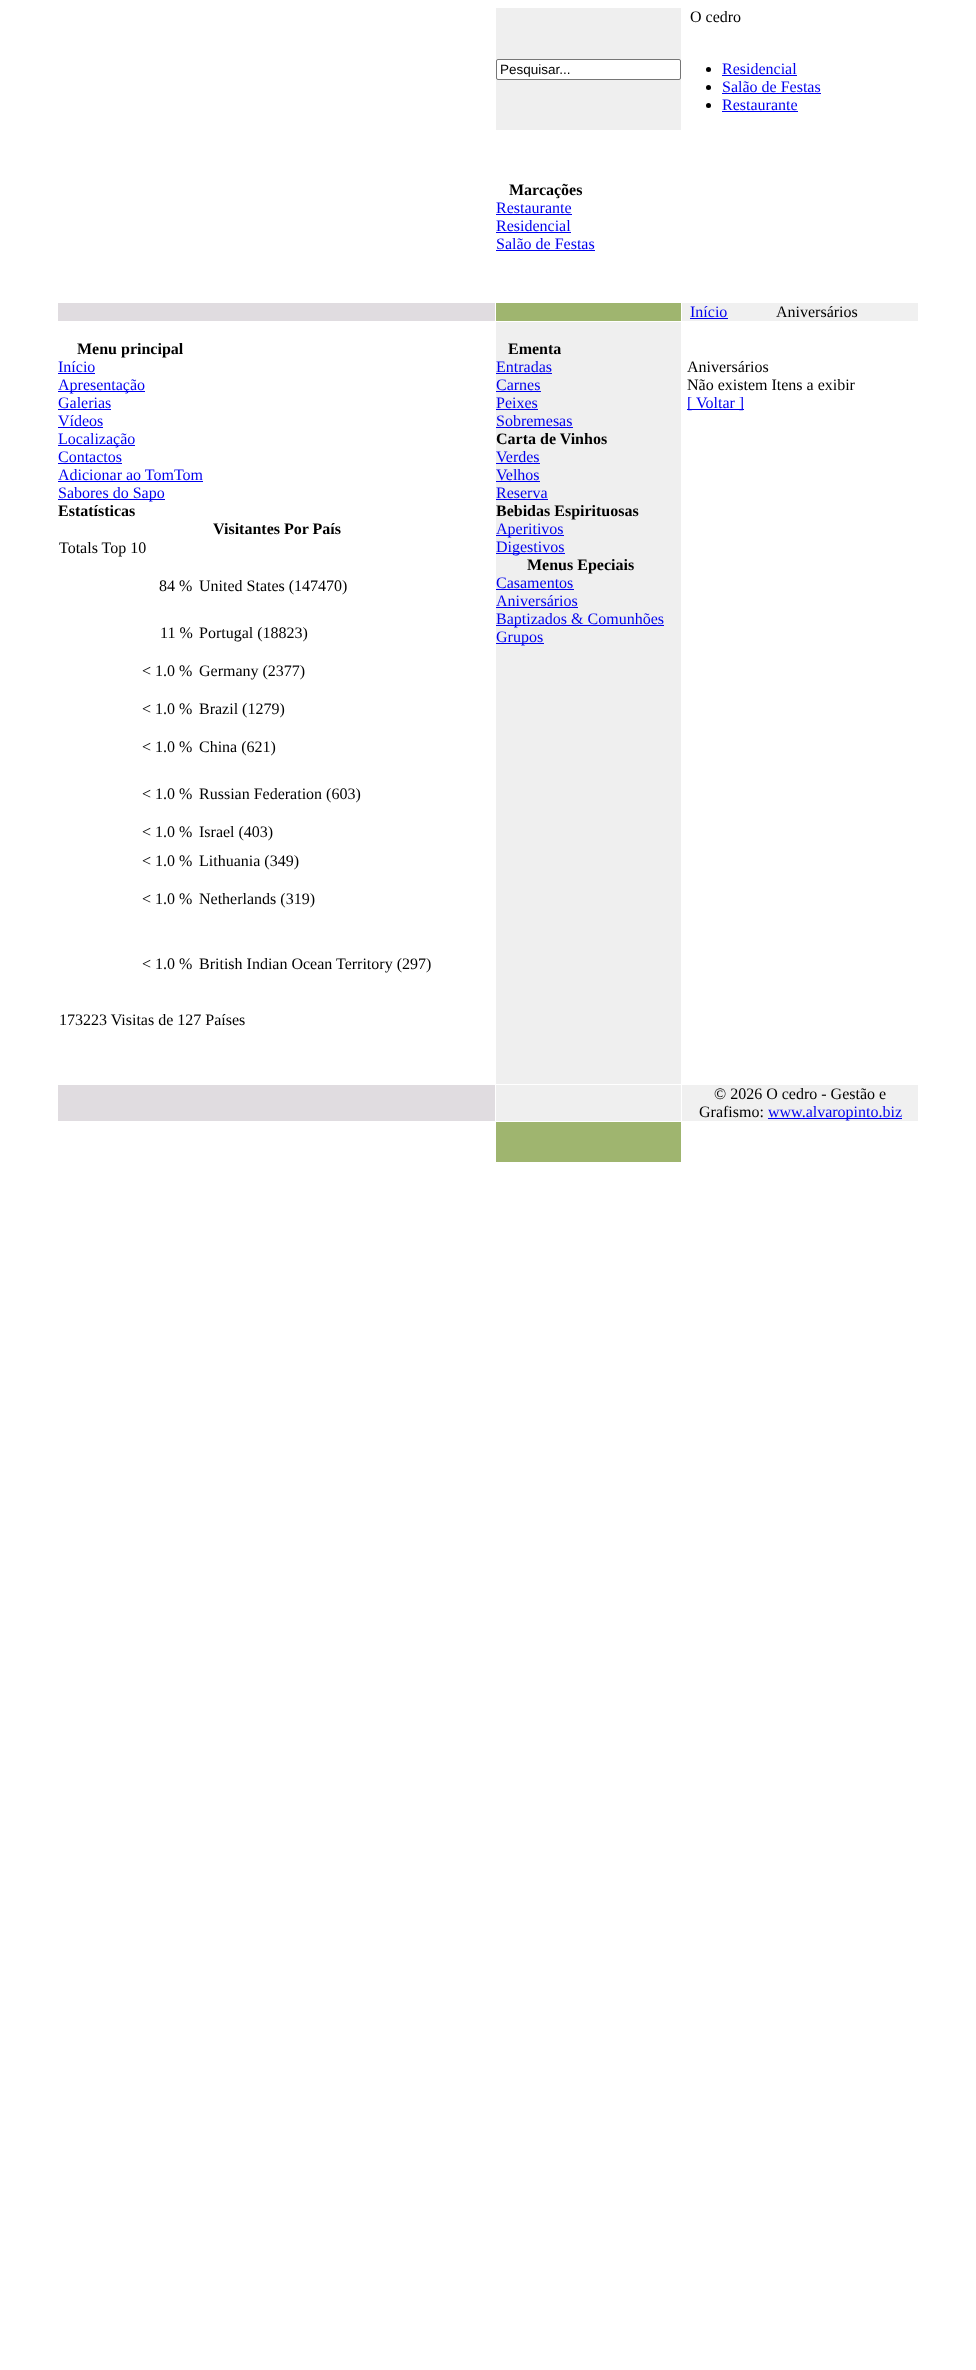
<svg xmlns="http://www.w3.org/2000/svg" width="976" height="2370">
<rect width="100%" height="100%" fill="#fff"/>
<rect x="496" y="8" width="185" height="122" fill="#efefef"/>
<rect x="496.5" y="59.5" width="184" height="20" rx="1.5" fill="#fff" stroke="#767676"/>
<text x="500" y="74" style="font-family:Liberation Sans;font-size:13.5px;fill:#000">Pesquisar...</text>
<text x="690" y="22" style="font-family:Liberation Serif;font-size:16px;fill:#000">O cedro</text>
<circle cx="708.5" cy="69.5" r="2.5" fill="#000"/>
<text x="722" y="74" style="font-family:Liberation Serif;font-size:16px;fill:#00e">Residencial</text>
<rect x="722" y="75" width="75" height="1" fill="#00e"/>
<circle cx="708.5" cy="87.5" r="2.5" fill="#000"/>
<text x="722" y="92" style="font-family:Liberation Serif;font-size:16px;fill:#00e">Salão de Festas</text>
<rect x="722" y="93" width="99" height="1" fill="#00e"/>
<circle cx="708.5" cy="105.5" r="2.5" fill="#000"/>
<text x="722" y="110" style="font-family:Liberation Serif;font-size:16px;fill:#00e">Restaurante</text>
<rect x="722" y="111" width="76" height="1" fill="#00e"/>
<text x="509" y="195" style="font-family:Liberation Serif;font-size:16px;font-weight:bold;fill:#000">Marcações</text>
<text x="496" y="213" style="font-family:Liberation Serif;font-size:16px;fill:#00e">Restaurante</text>
<rect x="496" y="214" width="76" height="1" fill="#00e"/>
<text x="496" y="231" style="font-family:Liberation Serif;font-size:16px;fill:#00e">Residencial</text>
<rect x="496" y="232" width="75" height="1" fill="#00e"/>
<text x="496" y="249" style="font-family:Liberation Serif;font-size:16px;fill:#00e">Salão de Festas</text>
<rect x="496" y="250" width="99" height="1" fill="#00e"/>
<rect x="58" y="303" width="437" height="18" fill="#e0dce0"/>
<rect x="496" y="303" width="185" height="18" fill="#9fb56f"/>
<rect x="682" y="303" width="236" height="18" fill="#f0f0f0"/>
<text x="690" y="317" style="font-family:Liberation Serif;font-size:16px;fill:#00e">Início</text>
<rect x="690" y="318" width="38" height="1" fill="#00e"/>
<text x="776" y="317" style="font-family:Liberation Serif;font-size:16px;fill:#000">Aniversários</text>
<text x="77" y="354" style="font-family:Liberation Serif;font-size:16px;font-weight:bold;fill:#000">Menu principal</text>
<text x="58" y="372" style="font-family:Liberation Serif;font-size:16px;fill:#00e">Início</text>
<rect x="58" y="373" width="37" height="1" fill="#00e"/>
<rect x="58" y="391" width="87" height="1" fill="#00e"/>
<text x="58" y="390" style="font-family:Liberation Serif;font-size:16px;fill:#00e">Apresentação</text>
<text x="58" y="408" style="font-family:Liberation Serif;font-size:16px;fill:#00e">Galerias</text>
<rect x="58" y="409" width="53" height="1" fill="#00e"/>
<text x="58" y="426" style="font-family:Liberation Serif;font-size:16px;fill:#00e">Vídeos</text>
<rect x="58" y="427" width="45" height="1" fill="#00e"/>
<rect x="58" y="445" width="77" height="1" fill="#00e"/>
<text x="58" y="444" style="font-family:Liberation Serif;font-size:16px;fill:#00e">Localização</text>
<text x="58" y="462" style="font-family:Liberation Serif;font-size:16px;fill:#00e">Contactos</text>
<rect x="58" y="463" width="64" height="1" fill="#00e"/>
<text x="58" y="480" style="font-family:Liberation Serif;font-size:16px;fill:#00e">Adicionar ao TomTom</text>
<rect x="58" y="481" width="145" height="1" fill="#00e"/>
<rect x="58" y="499" width="107" height="1" fill="#00e"/>
<text x="58" y="498" style="font-family:Liberation Serif;font-size:16px;fill:#00e">Sabores do Sapo</text>
<text x="58" y="516" style="font-family:Liberation Serif;font-size:16px;font-weight:bold;fill:#000">Estatísticas</text>
<text x="213" y="534" style="font-family:Liberation Serif;font-size:16px;font-weight:bold;fill:#000">Visitantes Por País</text>
<text x="59" y="553" style="font-family:Liberation Serif;font-size:16px;fill:#000">Totals Top 10</text>
<text x="159" y="591" style="font-family:Liberation Serif;font-size:16px;fill:#000">84 %</text>
<text x="199" y="591" style="font-family:Liberation Serif;font-size:16px;fill:#000">United States (147470)</text>
<text x="160" y="638" style="font-family:Liberation Serif;font-size:16px;fill:#000">11 %</text>
<text x="199" y="638" style="font-family:Liberation Serif;font-size:16px;fill:#000">Portugal (18823)</text>
<text x="142" y="676" style="font-family:Liberation Serif;font-size:16px;fill:#000">&lt; 1.0 %</text>
<text x="199" y="676" style="font-family:Liberation Serif;font-size:16px;fill:#000">Germany (2377)</text>
<text x="142" y="714" style="font-family:Liberation Serif;font-size:16px;fill:#000">&lt; 1.0 %</text>
<text x="199" y="714" style="font-family:Liberation Serif;font-size:16px;fill:#000">Brazil (1279)</text>
<text x="142" y="752" style="font-family:Liberation Serif;font-size:16px;fill:#000">&lt; 1.0 %</text>
<text x="199" y="752" style="font-family:Liberation Serif;font-size:16px;fill:#000">China (621)</text>
<text x="142" y="799" style="font-family:Liberation Serif;font-size:16px;fill:#000">&lt; 1.0 %</text>
<text x="199" y="799" style="font-family:Liberation Serif;font-size:16px;fill:#000">Russian Federation (603)</text>
<text x="142" y="837" style="font-family:Liberation Serif;font-size:16px;fill:#000">&lt; 1.0 %</text>
<text x="199" y="837" style="font-family:Liberation Serif;font-size:16px;fill:#000">Israel (403)</text>
<text x="142" y="866" style="font-family:Liberation Serif;font-size:16px;fill:#000">&lt; 1.0 %</text>
<text x="199" y="866" style="font-family:Liberation Serif;font-size:16px;fill:#000">Lithuania (349)</text>
<text x="142" y="904" style="font-family:Liberation Serif;font-size:16px;fill:#000">&lt; 1.0 %</text>
<text x="199" y="904" style="font-family:Liberation Serif;font-size:16px;fill:#000">Netherlands (319)</text>
<text x="142" y="969" style="font-family:Liberation Serif;font-size:16px;fill:#000">&lt; 1.0 %</text>
<text x="199" y="969" style="font-family:Liberation Serif;font-size:16px;fill:#000">British Indian Ocean Territory (297)</text>
<text x="59" y="1025" style="font-family:Liberation Serif;font-size:16px;fill:#000">173223 Visitas de 127 Países</text>
<rect x="496" y="322" width="185" height="762" fill="#efefef"/>
<text x="508" y="354" style="font-family:Liberation Serif;font-size:16px;font-weight:bold;fill:#000">Ementa</text>
<text x="496" y="372" style="font-family:Liberation Serif;font-size:16px;fill:#00e">Entradas</text>
<rect x="496" y="373" width="56" height="1" fill="#00e"/>
<text x="496" y="390" style="font-family:Liberation Serif;font-size:16px;fill:#00e">Carnes</text>
<rect x="496" y="391" width="45" height="1" fill="#00e"/>
<text x="496" y="408" style="font-family:Liberation Serif;font-size:16px;fill:#00e">Peixes</text>
<rect x="496" y="409" width="42" height="1" fill="#00e"/>
<text x="496" y="426" style="font-family:Liberation Serif;font-size:16px;fill:#00e">Sobremesas</text>
<rect x="496" y="427" width="77" height="1" fill="#00e"/>
<text x="496" y="444" style="font-family:Liberation Serif;font-size:16px;font-weight:bold;fill:#000">Carta de Vinhos</text>
<text x="496" y="462" style="font-family:Liberation Serif;font-size:16px;fill:#00e">Verdes</text>
<rect x="496" y="463" width="44" height="1" fill="#00e"/>
<text x="496" y="480" style="font-family:Liberation Serif;font-size:16px;fill:#00e">Velhos</text>
<rect x="496" y="481" width="44" height="1" fill="#00e"/>
<text x="496" y="498" style="font-family:Liberation Serif;font-size:16px;fill:#00e">Reserva</text>
<rect x="496" y="499" width="52" height="1" fill="#00e"/>
<text x="496" y="516" style="font-family:Liberation Serif;font-size:16px;font-weight:bold;fill:#000">Bebidas Espirituosas</text>
<rect x="496" y="535" width="68" height="1" fill="#00e"/>
<text x="496" y="534" style="font-family:Liberation Serif;font-size:16px;fill:#00e">Aperitivos</text>
<rect x="496" y="553" width="69" height="1" fill="#00e"/>
<text x="496" y="552" style="font-family:Liberation Serif;font-size:16px;fill:#00e">Digestivos</text>
<text x="527" y="570" style="font-family:Liberation Serif;font-size:16px;font-weight:bold;fill:#000">Menus Epeciais</text>
<text x="496" y="588" style="font-family:Liberation Serif;font-size:16px;fill:#00e">Casamentos</text>
<rect x="496" y="589" width="78" height="1" fill="#00e"/>
<text x="496" y="606" style="font-family:Liberation Serif;font-size:16px;fill:#00e">Aniversários</text>
<rect x="496" y="607" width="82" height="1" fill="#00e"/>
<rect x="496" y="625" width="168" height="1" fill="#00e"/>
<text x="496" y="624" style="font-family:Liberation Serif;font-size:16px;fill:#00e">Baptizados &amp; Comunhões</text>
<rect x="496" y="643" width="48" height="1" fill="#00e"/>
<text x="496" y="642" style="font-family:Liberation Serif;font-size:16px;fill:#00e">Grupos</text>
<text x="687" y="372" style="font-family:Liberation Serif;font-size:16px;fill:#000">Aniversários</text>
<text x="687" y="390" style="font-family:Liberation Serif;font-size:16px;fill:#000">Não existem Itens a exibir</text>
<rect x="687" y="409" width="57" height="1" fill="#00e"/>
<text x="687" y="408" style="font-family:Liberation Serif;font-size:16px;fill:#00e">[ Voltar ]</text>
<rect x="58" y="1085" width="437" height="36" fill="#e0dce0"/>
<rect x="496" y="1085" width="185" height="36" fill="#efefef"/>
<rect x="682" y="1085" width="236" height="36" fill="#f0f0f0"/>
<text x="714" y="1099" style="font-family:Liberation Serif;font-size:16px;fill:#000">© 2026 O cedro - Gestão e</text>
<text x="699" y="1117" style="font-family:Liberation Serif;font-size:16px;fill:#000">Grafismo:</text>
<rect x="768" y="1118" width="134" height="1" fill="#00e"/>
<text x="768" y="1117" style="font-family:Liberation Serif;font-size:16px;fill:#00e">www.alvaropinto.biz</text>
<rect x="496" y="1122" width="185" height="40" fill="#9fb56f"/>
</svg>
